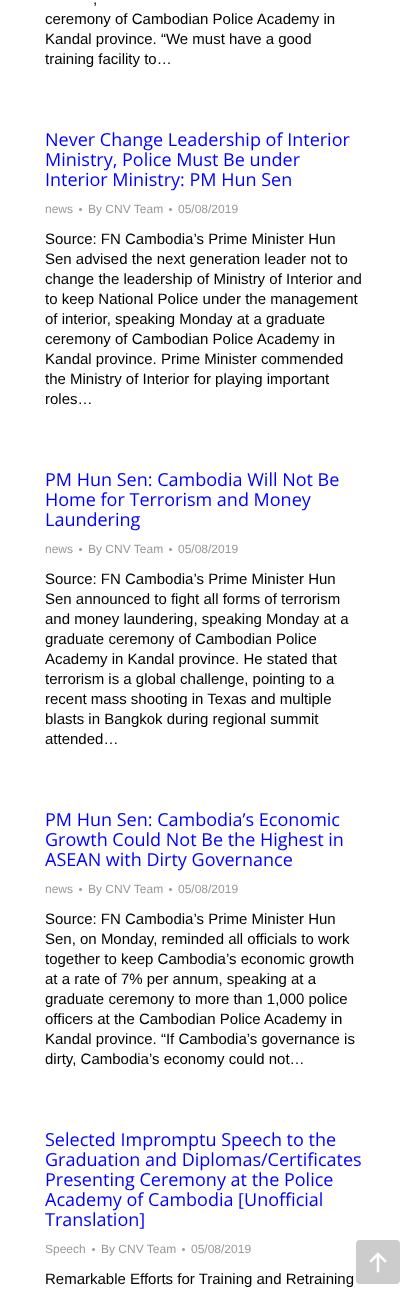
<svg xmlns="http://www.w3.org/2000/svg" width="410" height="1294">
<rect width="100%" height="100%" fill="#fff"/>
<text x="93" y="4" style="font-family:Liberation Sans;font-size:15px;fill:#000">,</text>
<text x="45" y="24" style="font-family:Liberation Sans;font-size:15px;fill:#000">ceremony of Cambodian Police Academy in</text>
<text x="45" y="44" style="font-family:Liberation Sans;font-size:15px;fill:#000">Kandal province. “We must have a good</text>
<text x="45" y="64" style="font-family:Liberation Sans;font-size:15px;fill:#000">training facility to…</text>
<text x="45" y="146" style="font-family:Open Sans;font-size:18px;fill:#00f">Never Change Leadership of Interior</text>
<text x="45" y="166" style="font-family:Open Sans;font-size:18px;fill:#00f">Ministry, Police Must Be under</text>
<text x="45" y="186" style="font-family:Open Sans;font-size:18px;fill:#00f">Interior Ministry: PM Hun Sen</text>
<text x="45" y="213" style="font-family:Liberation Sans;font-size:12px;fill:#999">news</text>
<circle cx="80.5" cy="209.5" r="1.5" fill="#999"/>
<text x="88" y="213" style="font-family:Liberation Sans;font-size:12px;fill:#999">By CNV Team</text>
<circle cx="170.5" cy="209.5" r="1.5" fill="#999"/>
<text x="178" y="213" style="font-family:Liberation Sans;font-size:12px;fill:#999">05/08/2019</text>
<text x="45" y="244" style="font-family:Liberation Sans;font-size:15px;fill:#000">Source: FN Cambodia’s Prime Minister Hun</text>
<text x="45" y="264" style="font-family:Liberation Sans;font-size:15px;fill:#000">Sen advised the next generation leader not to</text>
<text x="45" y="284" style="font-family:Liberation Sans;font-size:15px;fill:#000">change the leadership of Ministry of Interior and</text>
<text x="45" y="304" style="font-family:Liberation Sans;font-size:15px;fill:#000">to keep National Police under the management</text>
<text x="45" y="324" style="font-family:Liberation Sans;font-size:15px;fill:#000">of interior, speaking Monday at a graduate</text>
<text x="45" y="344" style="font-family:Liberation Sans;font-size:15px;fill:#000">ceremony of Cambodian Police Academy in</text>
<text x="45" y="364" style="font-family:Liberation Sans;font-size:15px;fill:#000">Kandal province. Prime Minister commended</text>
<text x="45" y="384" style="font-family:Liberation Sans;font-size:15px;fill:#000">the Ministry of Interior for playing important</text>
<text x="45" y="404" style="font-family:Liberation Sans;font-size:15px;fill:#000">roles…</text>
<text x="45" y="486" style="font-family:Open Sans;font-size:18px;fill:#00f">PM Hun Sen: Cambodia Will Not Be</text>
<text x="45" y="506" style="font-family:Open Sans;font-size:18px;fill:#00f">Home for Terrorism and Money</text>
<text x="45" y="526" style="font-family:Open Sans;font-size:18px;fill:#00f">Laundering</text>
<text x="45" y="553" style="font-family:Liberation Sans;font-size:12px;fill:#999">news</text>
<circle cx="80.5" cy="549.5" r="1.5" fill="#999"/>
<text x="88" y="553" style="font-family:Liberation Sans;font-size:12px;fill:#999">By CNV Team</text>
<circle cx="170.5" cy="549.5" r="1.5" fill="#999"/>
<text x="178" y="553" style="font-family:Liberation Sans;font-size:12px;fill:#999">05/08/2019</text>
<text x="45" y="584" style="font-family:Liberation Sans;font-size:15px;fill:#000">Source: FN Cambodia’s Prime Minister Hun</text>
<text x="45" y="604" style="font-family:Liberation Sans;font-size:15px;fill:#000">Sen announced to fight all forms of terrorism</text>
<text x="45" y="624" style="font-family:Liberation Sans;font-size:15px;fill:#000">and money laundering, speaking Monday at a</text>
<text x="45" y="644" style="font-family:Liberation Sans;font-size:15px;fill:#000">graduate ceremony of Cambodian Police</text>
<text x="45" y="664" style="font-family:Liberation Sans;font-size:15px;fill:#000">Academy in Kandal province. He stated that</text>
<text x="45" y="684" style="font-family:Liberation Sans;font-size:15px;fill:#000">terrorism is a global challenge, pointing to a</text>
<text x="45" y="704" style="font-family:Liberation Sans;font-size:15px;fill:#000">recent mass shooting in Texas and multiple</text>
<text x="45" y="724" style="font-family:Liberation Sans;font-size:15px;fill:#000">blasts in Bangkok during regional summit</text>
<text x="45" y="744" style="font-family:Liberation Sans;font-size:15px;fill:#000">attended…</text>
<text x="45" y="826" style="font-family:Open Sans;font-size:18px;fill:#00f">PM Hun Sen: Cambodia’s Economic</text>
<text x="45" y="846" style="font-family:Open Sans;font-size:18px;fill:#00f">Growth Could Not Be the Highest in</text>
<text x="45" y="866" style="font-family:Open Sans;font-size:18px;fill:#00f">ASEAN with Dirty Governance</text>
<text x="45" y="893" style="font-family:Liberation Sans;font-size:12px;fill:#999">news</text>
<circle cx="80.5" cy="889.5" r="1.5" fill="#999"/>
<text x="88" y="893" style="font-family:Liberation Sans;font-size:12px;fill:#999">By CNV Team</text>
<circle cx="170.5" cy="889.5" r="1.5" fill="#999"/>
<text x="178" y="893" style="font-family:Liberation Sans;font-size:12px;fill:#999">05/08/2019</text>
<text x="45" y="924" style="font-family:Liberation Sans;font-size:15px;fill:#000">Source: FN Cambodia’s Prime Minister Hun</text>
<text x="45" y="944" style="font-family:Liberation Sans;font-size:15px;fill:#000">Sen, on Monday, reminded all officials to work</text>
<text x="45" y="964" style="font-family:Liberation Sans;font-size:15px;fill:#000">together to keep Cambodia’s economic growth</text>
<text x="45" y="984" style="font-family:Liberation Sans;font-size:15px;fill:#000">at a rate of 7% per annum, speaking at a</text>
<text x="45" y="1004" style="font-family:Liberation Sans;font-size:15px;fill:#000">graduate ceremony to more than 1,000 police</text>
<text x="45" y="1024" style="font-family:Liberation Sans;font-size:15px;fill:#000">officers at the Cambodian Police Academy in</text>
<text x="45" y="1044" style="font-family:Liberation Sans;font-size:15px;fill:#000">Kandal province. “If Cambodia’s governance is</text>
<text x="45" y="1064" style="font-family:Liberation Sans;font-size:15px;fill:#000">dirty, Cambodia’s economy could not…</text>
<text x="45" y="1146" style="font-family:Open Sans;font-size:18px;fill:#00f">Selected Impromptu Speech to the</text>
<text x="45" y="1166" style="font-family:Open Sans;font-size:18px;fill:#00f">Graduation and Diplomas/Certificates</text>
<text x="45" y="1186" style="font-family:Open Sans;font-size:18px;fill:#00f">Presenting Ceremony at the Police</text>
<text x="45" y="1206" style="font-family:Open Sans;font-size:18px;fill:#00f">Academy of Cambodia [Unofficial</text>
<text x="45" y="1226" style="font-family:Open Sans;font-size:18px;fill:#00f">Translation]</text>
<text x="45" y="1253" style="font-family:Liberation Sans;font-size:12px;fill:#999">Speech</text>
<circle cx="93.5" cy="1249.5" r="1.5" fill="#999"/>
<text x="101" y="1253" style="font-family:Liberation Sans;font-size:12px;fill:#999">By CNV Team</text>
<circle cx="183.5" cy="1249.5" r="1.5" fill="#999"/>
<text x="191" y="1253" style="font-family:Liberation Sans;font-size:12px;fill:#999">05/08/2019</text>
<text x="45" y="1284" style="font-family:Liberation Sans;font-size:15px;fill:#000">Remarkable Efforts for Training and Retraining</text>
<rect x="356" y="1240" width="44" height="44" rx="4" fill="#ccc"/>
<image x="369" y="1252" width="18" height="21" href="media/1.png"/>
</svg>
